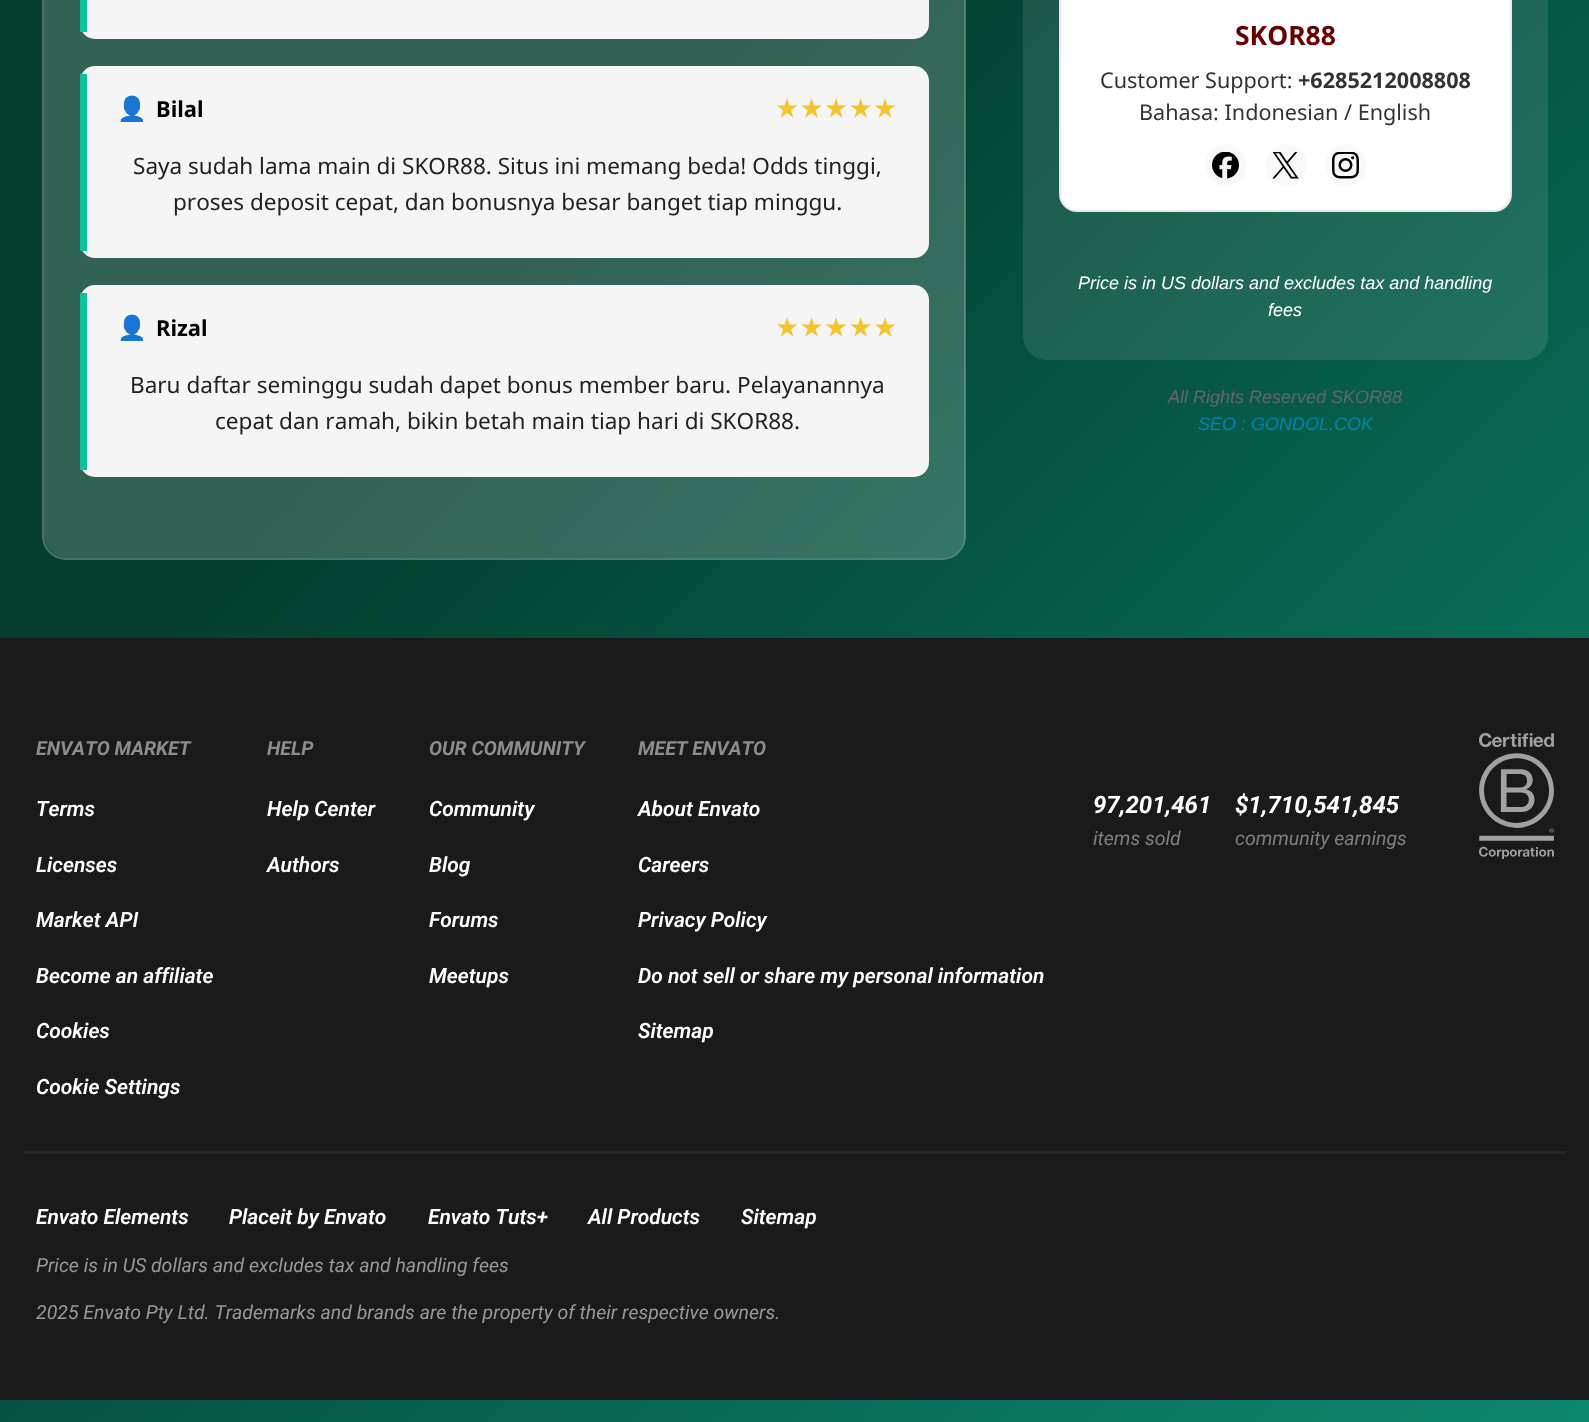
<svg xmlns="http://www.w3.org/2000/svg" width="1589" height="1422">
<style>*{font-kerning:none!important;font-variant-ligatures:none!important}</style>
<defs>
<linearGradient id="g1" gradientUnits="userSpaceOnUse" x1="1548" y1="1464" x2="42" y2="-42"><stop offset="0" stop-color="#0d886d"/><stop offset="0.74" stop-color="#023d2e"/></linearGradient>
</defs>
<rect width="100%" height="100%" fill="#fff"/>
<rect width="1589" height="1422" fill="url(#g1)"/>
<rect x="42" y="-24" width="924" height="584" rx="24" fill="#ffffff1a"/>
<rect x="43" y="-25" width="922" height="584" rx="23" fill="none" stroke="#ffffff33" stroke-width="2"/>
<rect x="44" y="-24" width="921" height="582" rx="24" fill="#ffffff1a"/>
<rect x="80" y="-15" width="849" height="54" rx="15" fill="#f5f5f5"/>
<rect x="80" width="7" height="32" fill="#09c29a"/>
<rect x="80" y="66" width="849" height="192" rx="15" fill="#f5f5f5"/>
<rect x="80" y="74" width="7" height="177" fill="#09c29a"/>
<text x="117" y="117" style="font-family:Noto Color Emoji;font-size:24px;font-weight:bold;fill:#000">👤</text>
<text x="156" y="117" style="font-family:Noto Sans;font-size:22px;font-weight:bold;fill:#000">Bilal</text>
<text x="776" y="117" style="font-family:DejaVu Sans;font-size:24px;font-weight:bold;letter-spacing:3px;fill:#f4c430">★★★★★</text>
<text x="133" y="174" style="font-family:Noto Sans;font-size:22.55px;fill:#222">Saya sudah lama main di SKOR88. Situs ini memang beda! Odds tinggi,</text>
<text x="173" y="210" style="font-family:Noto Sans;font-size:22.55px;fill:#222">proses deposit cepat, dan bonusnya besar banget tiap minggu.</text>
<rect x="80" y="285" width="849" height="192" rx="15" fill="#f5f5f5"/>
<rect x="80" y="293" width="7" height="177" fill="#09c29a"/>
<text x="117" y="336" style="font-family:Noto Color Emoji;font-size:24px;font-weight:bold;fill:#000">👤</text>
<text x="156" y="336" style="font-family:Noto Sans;font-size:22px;font-weight:bold;fill:#000">Rizal</text>
<text x="776" y="336" style="font-family:DejaVu Sans;font-size:24px;font-weight:bold;letter-spacing:3px;fill:#f4c430">★★★★★</text>
<text x="130" y="393" style="font-family:Noto Sans;font-size:22.55px;fill:#222">Baru daftar seminggu sudah dapet bonus member baru. Pelayanannya</text>
<text x="215" y="429" style="font-family:Noto Sans;font-size:22.55px;fill:#222">cepat dan ramah, bikin betah main tiap hari di SKOR88.</text>
<rect x="1023" y="-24" width="525" height="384" rx="24" fill="#ffffff1a"/>
<rect x="1060" y="-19" width="451" height="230" rx="17" fill="#fff" stroke="#e5e7eb" stroke-width="2"/>
<text x="1235" y="45" style="font-family:Noto Sans;font-size:26.5px;font-weight:bold;fill:#690000">SKOR88</text>
<text x="1100" y="88" style="font-family:Noto Sans;font-size:21.6px;fill:#333">Customer Support:</text>
<text x="1298" y="88" style="font-family:Noto Sans;font-size:21.6px;font-weight:bold;fill:#333">+6285212008808</text>
<text x="1139" y="120" style="font-family:Noto Sans;font-size:21.6px;fill:#333">Bahasa: Indonesian / English</text>
<circle cx="1226" cy="165" r="21" fill="#f9f9f9"/>
<image x="1212" y="152" width="27" height="27" href="media/1.png"/>
<circle cx="1286" cy="165" r="21" fill="#f9f9f9"/>
<image x="1272" y="152" width="27" height="27" href="media/2.png"/>
<circle cx="1346" cy="165" r="21" fill="#f9f9f9"/>
<image x="1332" y="152" width="27" height="27" href="media/3.png"/>
<text x="1078" y="289" style="font-family:Liberation Sans;font-size:18px;font-style:italic;fill:#fff">Price is in US dollars and excludes tax and handling</text>
<text x="1268" y="316" style="font-family:Liberation Sans;font-size:18px;font-style:italic;fill:#fff">fees</text>
<text x="1168" y="403" style="font-family:Liberation Sans;font-size:18px;font-style:italic;fill:#666">All Rights Reserved SKOR88</text>
<text x="1198" y="430" style="font-family:Liberation Sans;font-size:18px;font-style:italic;fill:#0084b4">SEO : GONDOL.COK</text>
<rect y="638" width="1589" height="762" fill="#1a1a1a"/>
<text x="36" y="755" style="font-family:Roboto;font-size:19.5px;font-weight:bold;font-style:italic;fill:#8d8d8d">ENVATO MARKET</text>
<text x="36" y="816" style="font-family:Roboto;font-size:21px;font-weight:600;font-style:italic;fill:#fff">Terms</text>
<text x="36" y="872" style="font-family:Roboto;font-size:21px;font-weight:600;font-style:italic;fill:#fff">Licenses</text>
<text x="36" y="927" style="font-family:Roboto;font-size:21px;font-weight:600;font-style:italic;fill:#fff">Market API</text>
<text x="36" y="983" style="font-family:Roboto;font-size:21px;font-weight:600;font-style:italic;fill:#fff">Become an affiliate</text>
<text x="36" y="1038" style="font-family:Roboto;font-size:21px;font-weight:600;font-style:italic;fill:#fff">Cookies</text>
<text x="36" y="1094" style="font-family:Roboto;font-size:21px;font-weight:600;font-style:italic;fill:#fff">Cookie Settings</text>
<text x="267" y="755" style="font-family:Roboto;font-size:19.5px;font-weight:bold;font-style:italic;fill:#8d8d8d">HELP</text>
<text x="267" y="816" style="font-family:Roboto;font-size:21px;font-weight:600;font-style:italic;fill:#fff">Help Center</text>
<text x="267" y="872" style="font-family:Roboto;font-size:21px;font-weight:600;font-style:italic;fill:#fff">Authors</text>
<text x="429" y="755" style="font-family:Roboto;font-size:19.5px;font-weight:bold;font-style:italic;fill:#8d8d8d">OUR COMMUNITY</text>
<text x="429" y="816" style="font-family:Roboto;font-size:21px;font-weight:600;font-style:italic;fill:#fff">Community</text>
<text x="429" y="872" style="font-family:Roboto;font-size:21px;font-weight:600;font-style:italic;fill:#fff">Blog</text>
<text x="429" y="927" style="font-family:Roboto;font-size:21px;font-weight:600;font-style:italic;fill:#fff">Forums</text>
<text x="429" y="983" style="font-family:Roboto;font-size:21px;font-weight:600;font-style:italic;fill:#fff">Meetups</text>
<text x="638" y="755" style="font-family:Roboto;font-size:19.5px;font-weight:bold;font-style:italic;fill:#8d8d8d">MEET ENVATO</text>
<text x="638" y="816" style="font-family:Roboto;font-size:21px;font-weight:600;font-style:italic;fill:#fff">About Envato</text>
<text x="638" y="872" style="font-family:Roboto;font-size:21px;font-weight:600;font-style:italic;fill:#fff">Careers</text>
<text x="638" y="927" style="font-family:Roboto;font-size:21px;font-weight:600;font-style:italic;fill:#fff">Privacy Policy</text>
<text x="638" y="983" style="font-family:Roboto;font-size:21px;font-weight:600;font-style:italic;fill:#fff">Do not sell or share my personal information</text>
<text x="638" y="1038" style="font-family:Roboto;font-size:21px;font-weight:600;font-style:italic;fill:#fff">Sitemap</text>
<text x="1093" y="813" style="font-family:Roboto;font-size:24px;font-weight:bold;font-style:italic;fill:#fff">97,201,461</text>
<text x="1093" y="845" style="font-family:Roboto;font-size:19.5px;font-style:italic;fill:#808080">items sold</text>
<text x="1235" y="813" style="font-family:Roboto;font-size:24px;font-weight:bold;font-style:italic;fill:#fff">$1,710,541,845</text>
<text x="1235" y="845" style="font-family:Roboto;font-size:19.5px;font-style:italic;fill:#808080">community earnings</text>
<image x="1479" y="733" width="75" height="126" href="media/4.png"/>
<rect x="24" y="1151" width="1542" height="3" fill="#262626"/>
<text x="36" y="1224" style="font-family:Roboto;font-size:21px;font-weight:600;font-style:italic;fill:#fff">Envato Elements</text>
<text x="229" y="1224" style="font-family:Roboto;font-size:21px;font-weight:600;font-style:italic;fill:#fff">Placeit by Envato</text>
<text x="428" y="1224" style="font-family:Roboto;font-size:21px;font-weight:600;font-style:italic;fill:#fff">Envato Tuts+</text>
<text x="588" y="1224" style="font-family:Roboto;font-size:21px;font-weight:600;font-style:italic;fill:#fff">All Products</text>
<text x="741" y="1224" style="font-family:Roboto;font-size:21px;font-weight:600;font-style:italic;fill:#fff">Sitemap</text>
<text x="36" y="1272" style="font-family:Roboto;font-size:19.5px;font-style:italic;fill:#999">Price is in US dollars and excludes tax and handling fees</text>
<text x="36" y="1319" style="font-family:Roboto;font-size:19.5px;font-style:italic;fill:#999">2025 Envato Pty Ltd. Trademarks and brands are the property of their respective owners.</text>
</svg>
